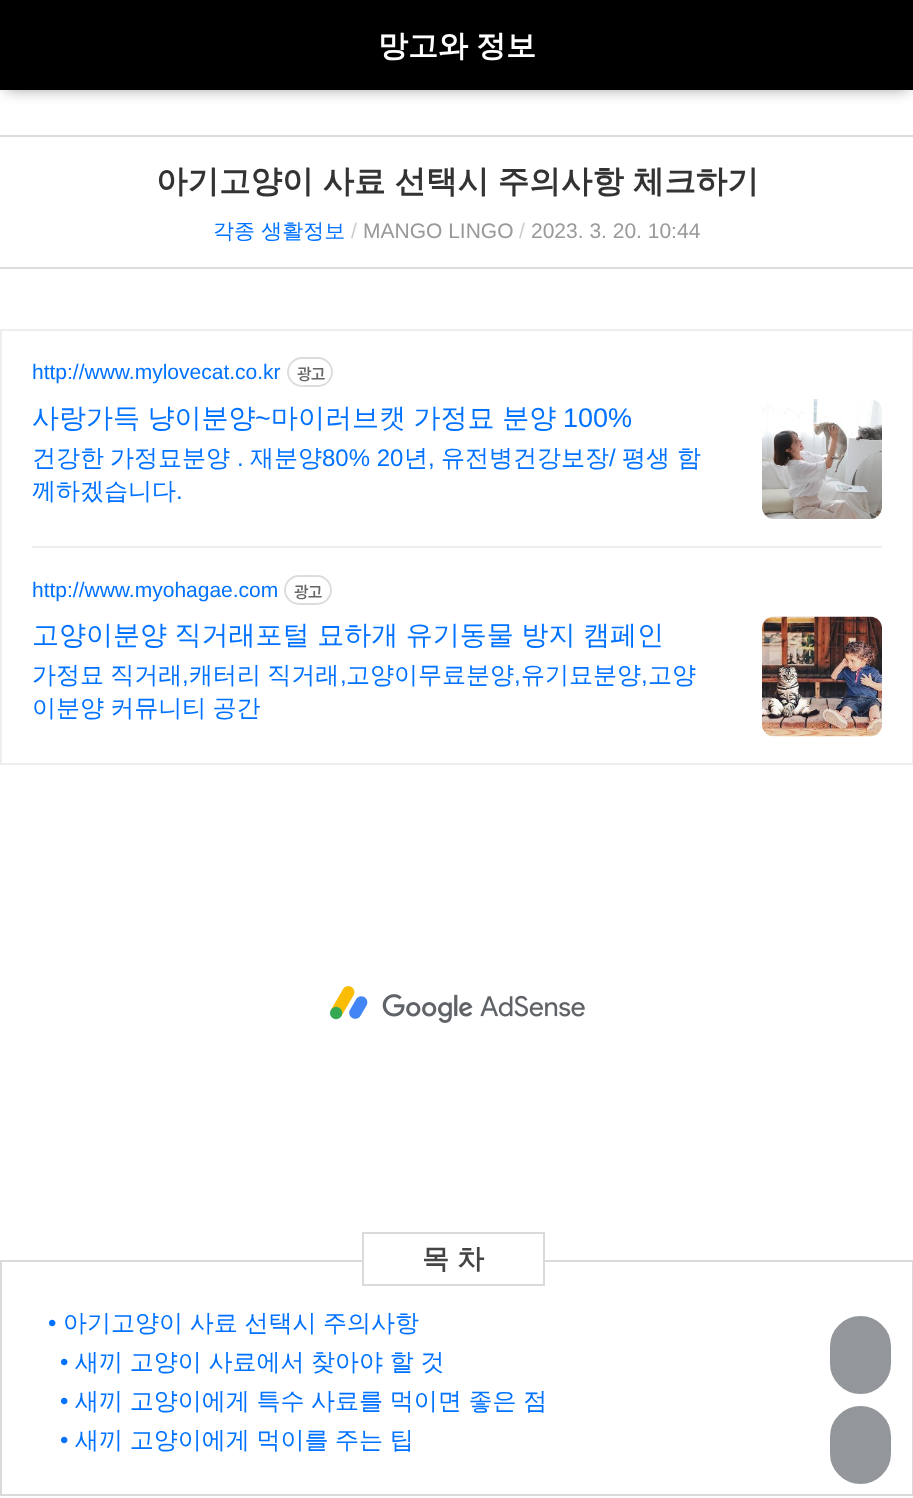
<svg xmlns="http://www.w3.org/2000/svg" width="913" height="1498">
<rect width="100%" height="100%" fill="#fff"/>
<rect x="6" y="11" width="902" height="78" fill="#999" filter="blur(7.5px)"/>
<rect width="913" height="90" fill="#000"/>
<text x="378" y="56" word-spacing="-1" style="font-family:WenQuanYi Zen Hei;font-size:30px;font-weight:bold;fill:#fff">망고와 정보</text>
<rect y="135" width="913" height="2" fill="#ddd"/>
<rect y="267" width="913" height="2" fill="#ddd"/>
<text x="156" y="192" word-spacing="-0.5" style="font-family:WenQuanYi Zen Hei;font-size:31.5px;font-weight:bold;fill:#333">아기고양이 사료 선택시 주의사항 체크하기</text>
<text x="213" y="238" style="font-family:WenQuanYi Zen Hei;font-size:21px;font-weight:500;fill:#0072ff">각종 생활정보</text>
<text x="351" y="238" style="font-family:Liberation Sans;font-size:21px;fill:#ccc">/</text>
<text x="363" y="238" style="font-family:Liberation Sans;font-size:21px;fill:#999">MANGO LINGO</text>
<text x="519" y="238" style="font-family:Liberation Sans;font-size:21px;fill:#ccc">/</text>
<text x="531" y="238" style="font-family:Liberation Sans;font-size:21px;fill:#999">2023. 3. 20. 10:44</text>
<rect x="1" y="330" width="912" height="434" fill="none" stroke="#eee" stroke-width="2"/>
<text x="32" y="379" style="font-family:Liberation Sans;font-size:21px;fill:#0072ff">http://www.mylovecat.co.kr</text>
<rect x="288" y="358" width="44" height="28" rx="14" fill="none" stroke="#ddd" stroke-width="2"/>
<text x="297" y="380" style="font-family:Noto Sans KR;font-size:16px;font-weight:500;letter-spacing:-1px;fill:#666">광고</text>
<text x="32" y="427" word-spacing="-0.5" style="font-family:WenQuanYi Zen Hei;font-size:27px;font-weight:500;fill:#0072ff">사랑가득 냥이분양</text>
<text x="255" y="427" style="font-family:Liberation Sans;font-size:27px;fill:#0072ff">~</text>
<text x="271" y="427" word-spacing="-0.5" style="font-family:WenQuanYi Zen Hei;font-size:27px;font-weight:500;fill:#0072ff">마이러브캣 가정묘 분양</text>
<text x="563" y="427" style="font-family:Liberation Sans;font-size:27px;fill:#0072ff">100%</text>
<text x="32" y="466" style="font-family:WenQuanYi Zen Hei;font-size:24px;font-weight:500;fill:#0072ff">건강한</text>
<text x="110" y="466" style="font-family:WenQuanYi Zen Hei;font-size:24px;font-weight:500;fill:#0072ff">가정묘분양</text>
<text x="237" y="466" style="font-family:Liberation Sans;font-size:24px;fill:#0072ff">.</text>
<text x="250" y="466" style="font-family:WenQuanYi Zen Hei;font-size:24px;font-weight:500;fill:#0072ff">재분양</text>
<text x="322" y="466" style="font-family:Liberation Sans;font-size:24px;fill:#0072ff">80% 20</text>
<text x="404" y="466" style="font-family:WenQuanYi Zen Hei;font-size:24px;font-weight:500;fill:#0072ff">년</text>
<text x="428" y="466" style="font-family:Liberation Sans;font-size:24px;fill:#0072ff">,</text>
<text x="441" y="466" style="font-family:WenQuanYi Zen Hei;font-size:24px;font-weight:500;fill:#0072ff">유전병건강보장</text>
<text x="609" y="466" style="font-family:Liberation Sans;font-size:24px;fill:#0072ff">/</text>
<text x="622" y="466" style="font-family:WenQuanYi Zen Hei;font-size:24px;font-weight:500;fill:#0072ff">평생</text>
<text x="677" y="466" style="font-family:WenQuanYi Zen Hei;font-size:24px;font-weight:500;fill:#0072ff">함</text>
<text x="32" y="499" style="font-family:WenQuanYi Zen Hei;font-size:24px;font-weight:500;fill:#0072ff">께하겠습니다</text>
<text x="176" y="499" style="font-family:Liberation Sans;font-size:24px;fill:#0072ff">.</text>
<image x="762" y="399" width="120" height="120" href="media/1.png"/>
<rect x="32" y="546" width="850" height="2" fill="#eee"/>
<text x="32" y="597" style="font-family:Liberation Sans;font-size:21px;fill:#0072ff">http://www.myohagae.com</text>
<rect x="285" y="576" width="46" height="28" rx="14" fill="none" stroke="#ddd" stroke-width="2"/>
<text x="294" y="598" style="font-family:Noto Sans KR;font-size:16px;font-weight:500;letter-spacing:-1px;fill:#666">광고</text>
<text x="32" y="644" word-spacing="-0.5" style="font-family:WenQuanYi Zen Hei;font-size:27px;font-weight:500;fill:#0072ff">고양이분양 직거래포털 묘하개 유기동물 방지 캠페인</text>
<text x="32" y="683" word-spacing="-1" style="font-family:WenQuanYi Zen Hei;font-size:24px;font-weight:500;fill:#0072ff">가정묘 직거래</text>
<text x="182" y="683" style="font-family:Liberation Sans;font-size:24px;fill:#0072ff">,</text>
<text x="189" y="683" word-spacing="-1" style="font-family:WenQuanYi Zen Hei;font-size:24px;font-weight:500;fill:#0072ff">캐터리 직거래</text>
<text x="340" y="683" style="font-family:Liberation Sans;font-size:24px;fill:#0072ff">,</text>
<text x="346" y="683" style="font-family:WenQuanYi Zen Hei;font-size:24px;font-weight:500;fill:#0072ff">고양이무료분양</text>
<text x="514" y="683" style="font-family:Liberation Sans;font-size:24px;fill:#0072ff">,</text>
<text x="521" y="683" style="font-family:WenQuanYi Zen Hei;font-size:24px;font-weight:500;fill:#0072ff">유기묘분양</text>
<text x="641" y="683" style="font-family:Liberation Sans;font-size:24px;fill:#0072ff">,</text>
<text x="648" y="683" style="font-family:WenQuanYi Zen Hei;font-size:24px;font-weight:500;fill:#0072ff">고양</text>
<text x="32" y="716" word-spacing="-1" style="font-family:WenQuanYi Zen Hei;font-size:24px;font-weight:500;fill:#0072ff">이분양 커뮤니티 공간</text>
<image x="762" y="616" width="120" height="121" href="media/2.png"/>
<image x="330" y="986" width="255" height="37" href="media/3.png"/>
<rect x="1" y="1261" width="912" height="234" fill="none" stroke="#dadada" stroke-width="2"/>
<rect x="364" y="1260" width="179" height="2" fill="#fff"/>
<rect x="363" y="1233" width="181" height="52" fill="none" stroke="#dadada" stroke-width="2"/>
<text x="422" y="1268" style="font-family:WenQuanYi Zen Hei;font-size:27px;font-weight:bold;fill:#444">목</text>
<text x="457" y="1268" style="font-family:WenQuanYi Zen Hei;font-size:27px;font-weight:bold;fill:#444">차</text>
<text x="48" y="1331" style="font-family:Liberation Sans;font-size:24px;fill:#0072ff">•</text>
<text x="63" y="1331" word-spacing="-0.5" style="font-family:WenQuanYi Zen Hei;font-size:24px;font-weight:500;fill:#0072ff">아기고양이 사료 선택시 주의사항</text>
<text x="60" y="1370" style="font-family:Liberation Sans;font-size:24px;fill:#0072ff">•</text>
<text x="75" y="1370" word-spacing="-0.5" style="font-family:WenQuanYi Zen Hei;font-size:24px;font-weight:500;fill:#0072ff">새끼 고양이 사료에서 찾아야 할 것</text>
<text x="60" y="1409" style="font-family:Liberation Sans;font-size:24px;fill:#0072ff">•</text>
<text x="75" y="1409" word-spacing="-0.5" style="font-family:WenQuanYi Zen Hei;font-size:24px;font-weight:500;fill:#0072ff">새끼 고양이에게 특수 사료를 먹이면 좋은 점</text>
<text x="60" y="1448" style="font-family:Liberation Sans;font-size:24px;fill:#0072ff">•</text>
<text x="75" y="1448" word-spacing="-0.5" style="font-family:WenQuanYi Zen Hei;font-size:24px;font-weight:500;fill:#0072ff">새끼 고양이에게 먹이를 주는 팁</text>
<rect x="831" y="1317" width="59" height="76" rx="29.5" fill="#93979b" stroke="#93979b" stroke-width="2"/>
<rect x="831" y="1407" width="59" height="76" rx="29.5" fill="#93979b" stroke="#93979b" stroke-width="2"/>
</svg>
